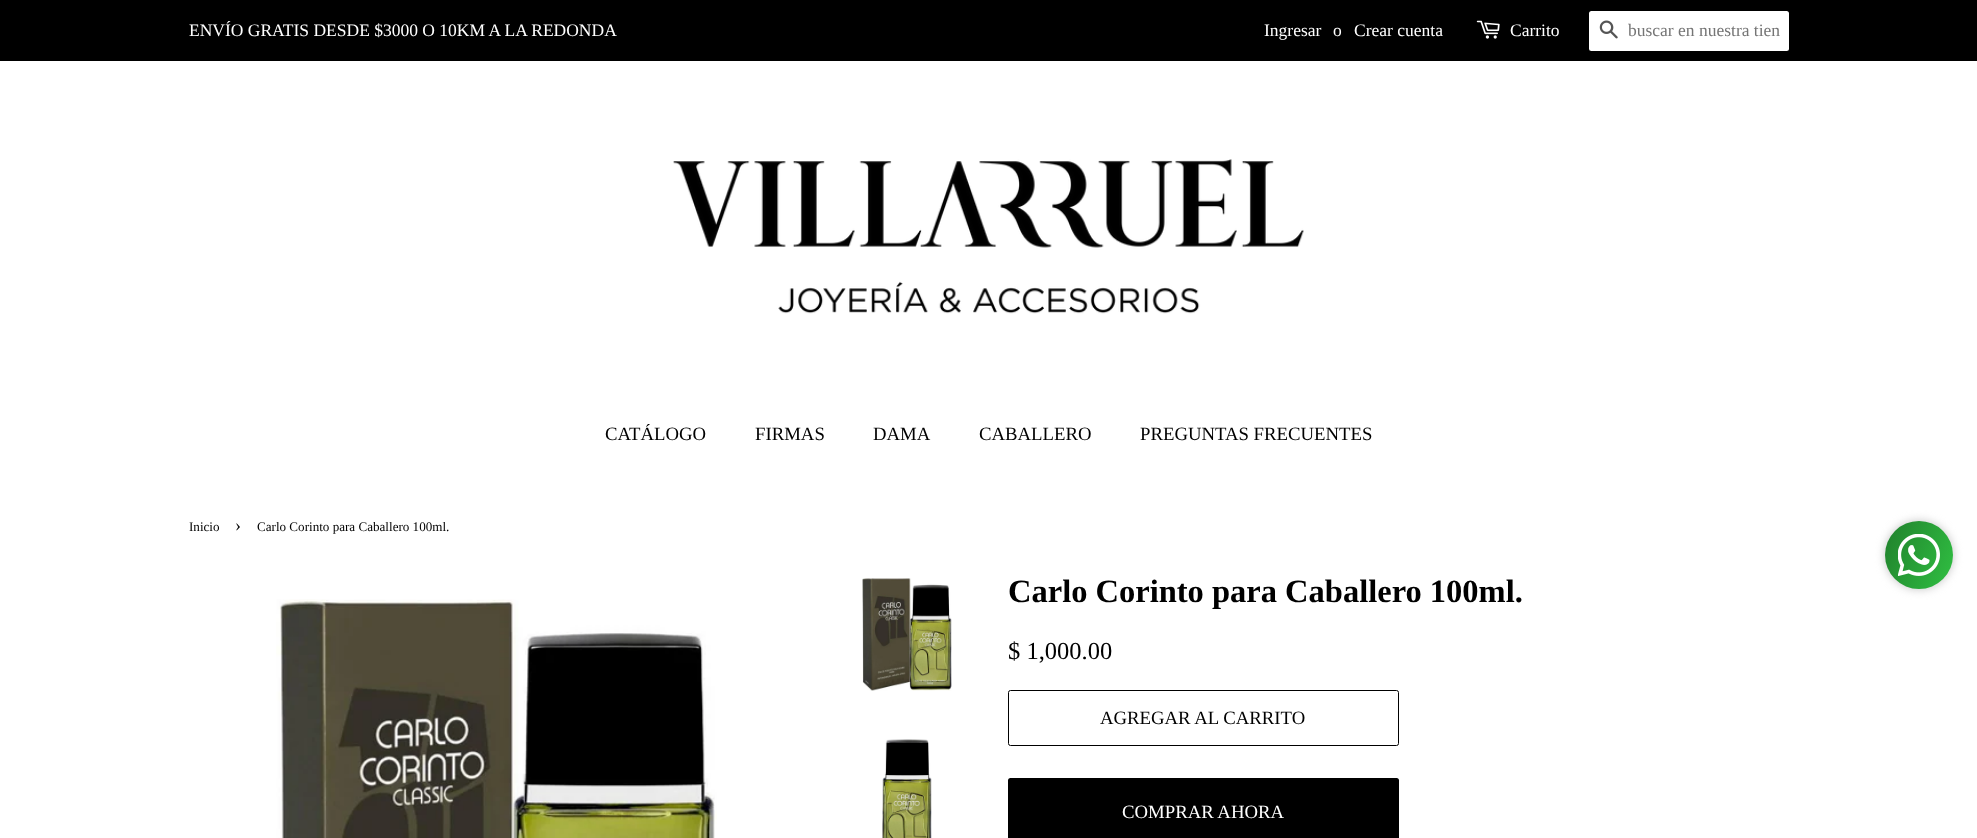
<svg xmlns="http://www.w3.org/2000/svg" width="1977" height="838">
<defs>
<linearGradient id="g1" gradientUnits="userSpaceOnUse" x1="1878" y1="538" x2="1959" y2="572"><stop offset="0" stop-color="#20802c"/><stop offset="0" stop-color="#20802c"/><stop offset="1" stop-color="#30bf42"/></linearGradient>
</defs>
<rect width="100%" height="100%" fill="#fff"/>
<rect width="1977" height="61" fill="#000"/>
<text x="189" y="36" style="font-family:Liberation Serif;font-size:17.5px;fill:#fff">ENVÍO GRATIS DESDE $3000 O 10KM A LA REDONDA</text>
<text x="1264" y="36" style="font-family:Liberation Serif;font-size:17.5px;fill:#fff">Ingresar</text>
<text x="1333" y="36" style="font-family:Liberation Serif;font-size:17.5px;fill:#fff">o</text>
<text x="1354" y="36" style="font-family:Liberation Serif;font-size:17.5px;fill:#fff">Crear cuenta</text>
<image x="1476" y="20" width="24" height="19" href="media/1.png"/>
<text x="1510" y="36" style="font-family:Liberation Serif;font-size:17.5px;fill:#fff">Carrito</text>
<rect x="1589" y="11" width="200" height="40" rx="2.5" fill="#fff"/>
<image x="1599" y="20" width="19" height="19" href="media/2.png"/>
<text x="1628" y="36" style="font-family:Liberation Serif;font-size:17.5px;fill:#757575">buscar en nuestra tien</text>
<image x="673" y="159" width="631" height="155" href="media/3.png"/>
<text x="605" y="440" style="font-family:Liberation Serif;font-size:18.75px;fill:#000">CATÁLOGO</text>
<text x="755" y="440" style="font-family:Liberation Serif;font-size:18.75px;fill:#000">FIRMAS</text>
<text x="873" y="440" style="font-family:Liberation Serif;font-size:18.75px;fill:#000">DAMA</text>
<text x="979" y="440" style="font-family:Liberation Serif;font-size:18.75px;fill:#000">CABALLERO</text>
<text x="1140" y="440" style="font-family:Liberation Serif;font-size:18.75px;fill:#000">PREGUNTAS FRECUENTES</text>
<text x="189" y="531" style="font-family:Liberation Serif;font-size:13.1px;fill:#000">Inicio</text>
<text x="235" y="531" style="font-family:Liberation Serif;font-size:18px;fill:#000">›</text>
<text x="257" y="531" style="font-family:Liberation Serif;font-size:13.1px;fill:#000">Carlo Corinto para Caballero 100ml.</text>
<image x="276" y="599" width="441" height="239" href="media/4.png"/>
<image x="862" y="578" width="90" height="113" href="media/5.png"/>
<image x="882" y="739" width="50" height="99" href="media/6.png"/>
<text x="1008" y="602" style="font-family:Liberation Serif;font-size:32.5px;font-weight:bold;fill:#000">Carlo Corinto para Caballero 100ml.</text>
<text x="1008" y="659" style="font-family:Liberation Serif;font-size:24.5px;fill:#000">$ 1,000.00</text>
<rect x="1008.5" y="690.5" width="390" height="55" rx="2" fill="none" stroke="#000"/>
<text x="1100" y="724" style="font-family:Liberation Serif;font-size:18.75px;fill:#000">AGREGAR AL CARRITO</text>
<rect x="1008" y="778" width="391" height="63" rx="2.5" fill="#000"/>
<text x="1122" y="818" style="font-family:Liberation Serif;font-size:18.75px;fill:#fff">COMPRAR AHORA</text>
<rect x="1885" y="521" width="68" height="68" rx="34" fill="#c2c2c2" filter="blur(5px)"/>
<circle cx="1919" cy="555" r="34" fill="url(#g1)"/>
<image x="1898" y="534" width="42" height="42" href="media/7.png"/>
</svg>
